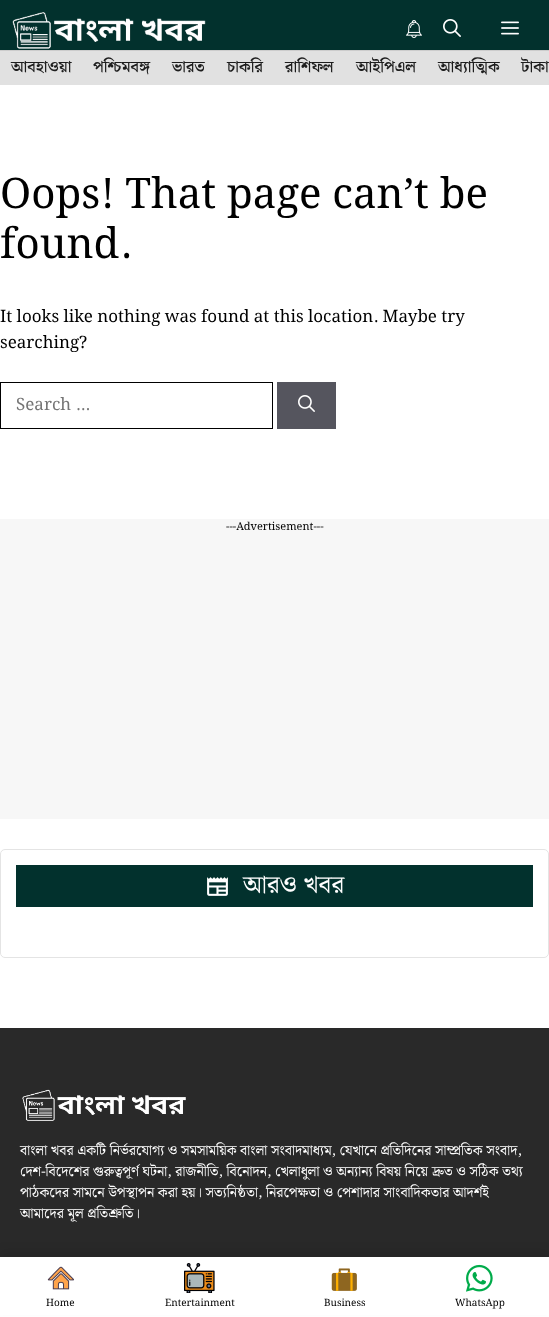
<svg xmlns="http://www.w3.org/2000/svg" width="549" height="1317">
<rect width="100%" height="100%" fill="#fff"/>
<rect width="549" height="50" fill="#02312d"/>
<image x="12" y="12" width="194" height="37" href="media/1.png"/>
<image x="406" y="20" width="16" height="18" href="media/2.png"/>
<image x="443" y="19" width="18" height="18" href="media/3.png"/>
<image x="501" y="21" width="18" height="14" href="media/4.png"/>
<rect y="51" width="549" height="34" fill="#e1e1e1"/>
<rect y="50" width="549" height="1" fill="#ccc"/>
<text x="11" y="72" style="font-family:Noto Serif Bengali;font-size:16px;font-weight:600;fill:#1d1d1d">আবহাওয়া</text>
<text x="93" y="72" style="font-family:Noto Serif Bengali;font-size:16px;font-weight:600;fill:#1d1d1d">পশ্চিমবঙ্গ</text>
<text x="172" y="72" style="font-family:Noto Serif Bengali;font-size:16px;font-weight:600;fill:#1d1d1d">ভারত</text>
<text x="227" y="72" style="font-family:Noto Serif Bengali;font-size:16px;font-weight:600;fill:#1d1d1d">চাকরি</text>
<text x="285" y="72" style="font-family:Noto Serif Bengali;font-size:16px;font-weight:600;fill:#1d1d1d">রাশিফল</text>
<text x="356" y="72" style="font-family:Noto Serif Bengali;font-size:16px;font-weight:600;fill:#1d1d1d">আইপিএল</text>
<text x="438" y="72" style="font-family:Noto Serif Bengali;font-size:16px;font-weight:600;fill:#1d1d1d">আধ্যাত্মিক</text>
<text x="521" y="72" style="font-family:Noto Serif Bengali;font-size:16px;font-weight:600;fill:#1d1d1d">টাকা</text>
<text x="0" y="208" style="font-family:Noto Serif Bengali;font-size:42px;fill:#000">Oops! That page can’t be</text>
<text x="0" y="258" style="font-family:Noto Serif Bengali;font-size:42px;fill:#000">found.</text>
<text x="0" y="322" style="font-family:Noto Serif Bengali;font-size:17px;fill:#000">It looks like nothing was found at this location. Maybe try</text>
<text x="0" y="348" style="font-family:Noto Serif Bengali;font-size:17px;fill:#000">searching?</text>
<rect x="0.5" y="382.5" width="272" height="46" fill="none" stroke="#000"/>
<text x="16" y="410" style="font-family:Noto Serif Bengali;font-size:17px;fill:#757575">Search …</text>
<rect x="277" y="382" width="59" height="47" fill="#55555e"/>
<image x="298" y="395" width="17" height="17" href="media/5.png"/>
<rect y="519" width="549" height="300" fill="#f7f7f7"/>
<text x="226" y="530" style="font-family:Noto Serif Bengali;font-size:11px;fill:#000">---Advertisement---</text>
<rect x="0.5" y="849.5" width="548" height="108" rx="4.5" fill="none" stroke="#e4e4e4"/>
<rect x="16" y="865" width="517" height="42" fill="#02312d"/>
<image x="207" y="877" width="21" height="19" href="media/6.png"/>
<text x="243" y="893" style="font-family:Noto Serif Bengali;font-size:25px;fill:#fff">আরও খবর</text>
<rect y="1028" width="549" height="229" fill="#292929"/>
<image x="22" y="1089" width="164" height="32" href="media/7.png"/>
<text x="20" y="1155" style="font-family:Noto Serif Bengali;font-size:14px;fill:#fff">বাংলা খবর একটি নির্ভরযোগ্য ও সমসাময়িক বাংলা সংবাদমাধ্যম, যেখানে প্রতিদিনের সাম্প্রতিক সংবাদ,</text>
<text x="20" y="1176" style="font-family:Noto Serif Bengali;font-size:14px;fill:#fff">দেশ-বিদেশের গুরুত্বপূর্ণ ঘটনা, রাজনীতি, বিনোদন, খেলাধুলা ও অন্যান্য বিষয় নিয়ে দ্রুত ও সঠিক তথ্য</text>
<text x="20" y="1197" style="font-family:Noto Serif Bengali;font-size:14px;fill:#fff">পাঠকদের সামনে উপস্থাপন করা হয়। সত্যনিষ্ঠতা, নিরপেক্ষতা ও পেশাদার সাংবাদিকতার আদর্শই</text>
<text x="20" y="1218" style="font-family:Noto Serif Bengali;font-size:14px;fill:#fff">আমাদের মূল প্রতিশ্রুতি।</text>
<rect y="1250" width="549" height="60" fill="#00000012" filter="blur(5px)"/>
<rect y="1257" width="549" height="58" fill="#fff"/>
<image x="47" y="1266" width="27" height="24" href="media/8.png"/>
<text x="46" y="1306" style="font-family:Noto Serif Bengali;font-size:10px;fill:#000">Home</text>
<image x="184" y="1263" width="31" height="30" href="media/9.png"/>
<text x="165" y="1306" style="font-family:Noto Serif Bengali;font-size:10px;fill:#000">Entertainment</text>
<image x="331" y="1268" width="26" height="23" href="media/10.png"/>
<text x="324" y="1306" style="font-family:Noto Serif Bengali;font-size:10px;fill:#000">Business</text>
<image x="466" y="1264" width="27" height="28" href="media/11.png"/>
<text x="455" y="1306" style="font-family:Noto Serif Bengali;font-size:10px;fill:#000">WhatsApp</text>
</svg>
